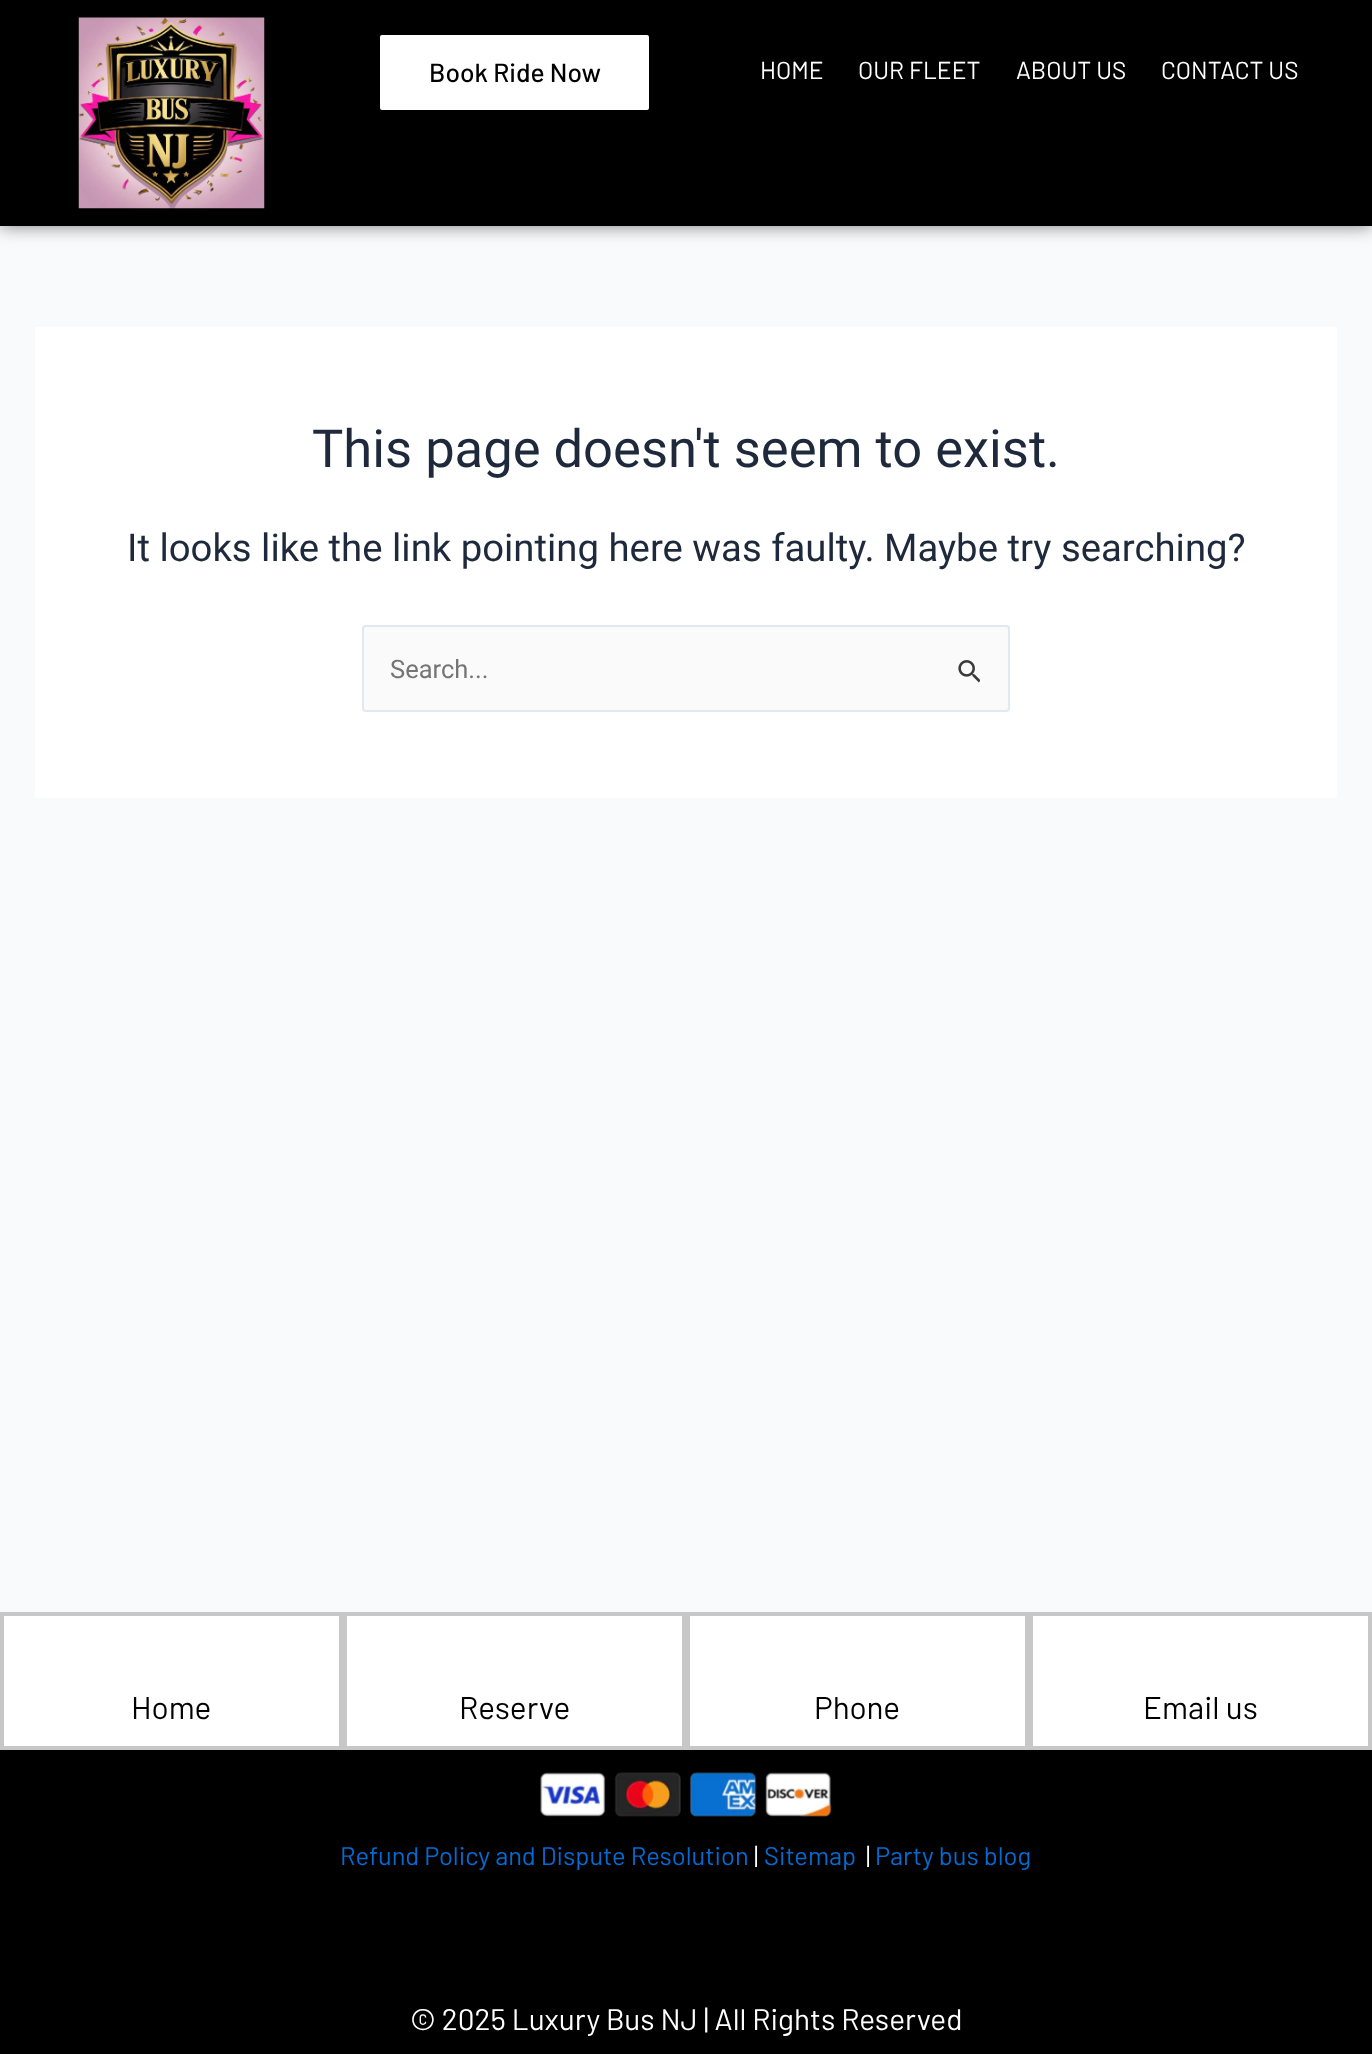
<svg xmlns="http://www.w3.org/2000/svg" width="1372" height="2054">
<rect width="100%" height="100%" fill="#f9fafb"/>
<rect width="1372" height="226" fill="#00000080" filter="blur(9px)"/>
<rect width="1372" height="226" fill="#000"/>
<image x="78" y="17" width="187" height="192" href="media/1.png"/>
<rect x="380" y="35" width="269" height="75" rx="2" fill="#fff"/>
<text x="429" y="82" style="font-family:Barlow;font-size:26.25px;font-weight:500;fill:#000">Book Ride Now</text>
<text x="760" y="79" style="font-family:Barlow;font-size:24.5px;fill:#fff">HOME</text>
<text x="858" y="79" style="font-family:Barlow;font-size:24.5px;fill:#fff">OUR FLEET</text>
<text x="1016" y="79" style="font-family:Barlow;font-size:24.5px;fill:#fff">ABOUT US</text>
<text x="1161" y="79" style="font-family:Barlow;font-size:24.5px;fill:#fff">CONTACT US</text>
<rect x="35" y="327" width="1302" height="471" fill="#fff"/>
<text x="312" y="467" style="font-family:Roboto;font-size:52.5px;fill:#1e293b">This page doesn't seem to exist.</text>
<text x="127" y="561" style="font-family:Roboto;font-size:38.3px;fill:#1e293b">It looks like the link pointing here was faulty. Maybe try searching?</text>
<rect x="363" y="626" width="646" height="85" rx="3" fill="#fafafa" stroke="#e2e8f0" stroke-width="2"/>
<text x="390" y="678" style="font-family:Roboto;font-size:25.5px;fill:#757575">Search...</text>
<image x="958" y="660" width="22" height="23" href="media/2.png"/>
<rect x="4" y="1616" width="1364" height="130" fill="#fff"/>
<rect x="2" y="1614" width="339" height="134" fill="none" stroke="#c7c7c7" stroke-width="4"/>
<text x="131" y="1719" style="font-family:Barlow;font-size:31.5px;fill:#000">Home</text>
<rect x="345" y="1614" width="339" height="134" fill="none" stroke="#c7c7c7" stroke-width="4"/>
<text x="459" y="1719" style="font-family:Barlow;font-size:31.5px;fill:#000">Reserve</text>
<rect x="688" y="1614" width="339" height="134" fill="none" stroke="#c7c7c7" stroke-width="4"/>
<text x="814" y="1719" style="font-family:Barlow;font-size:31.5px;fill:#000">Phone</text>
<rect x="1031" y="1614" width="339" height="134" fill="none" stroke="#c7c7c7" stroke-width="4"/>
<text x="1143" y="1719" style="font-family:Barlow;font-size:31.5px;fill:#000">Email us</text>
<rect y="1750" width="1372" height="304" fill="#000"/>
<image x="540" y="1772" width="292" height="45" href="media/3.png"/>
<text x="340" y="1865" style="font-family:Barlow;font-size:25.5px;fill:#046bd2">Refund Policy and Dispute Resolution</text>
<text x="754" y="1865" style="font-family:Barlow;font-size:25.5px;fill:#fff">|</text>
<text x="764" y="1865" style="font-family:Barlow;font-size:25.5px;fill:#046bd2">Sitemap</text>
<text x="866" y="1865" style="font-family:Barlow;font-size:25.5px;fill:#fff">|</text>
<text x="875" y="1865" style="font-family:Barlow;font-size:25.5px;fill:#046bd2">Party bus blog</text>
<text x="410" y="2030" style="font-family:Barlow;font-size:29.75px;fill:#fff">© 2025 Luxury Bus NJ | All Rights Reserved</text>
</svg>
